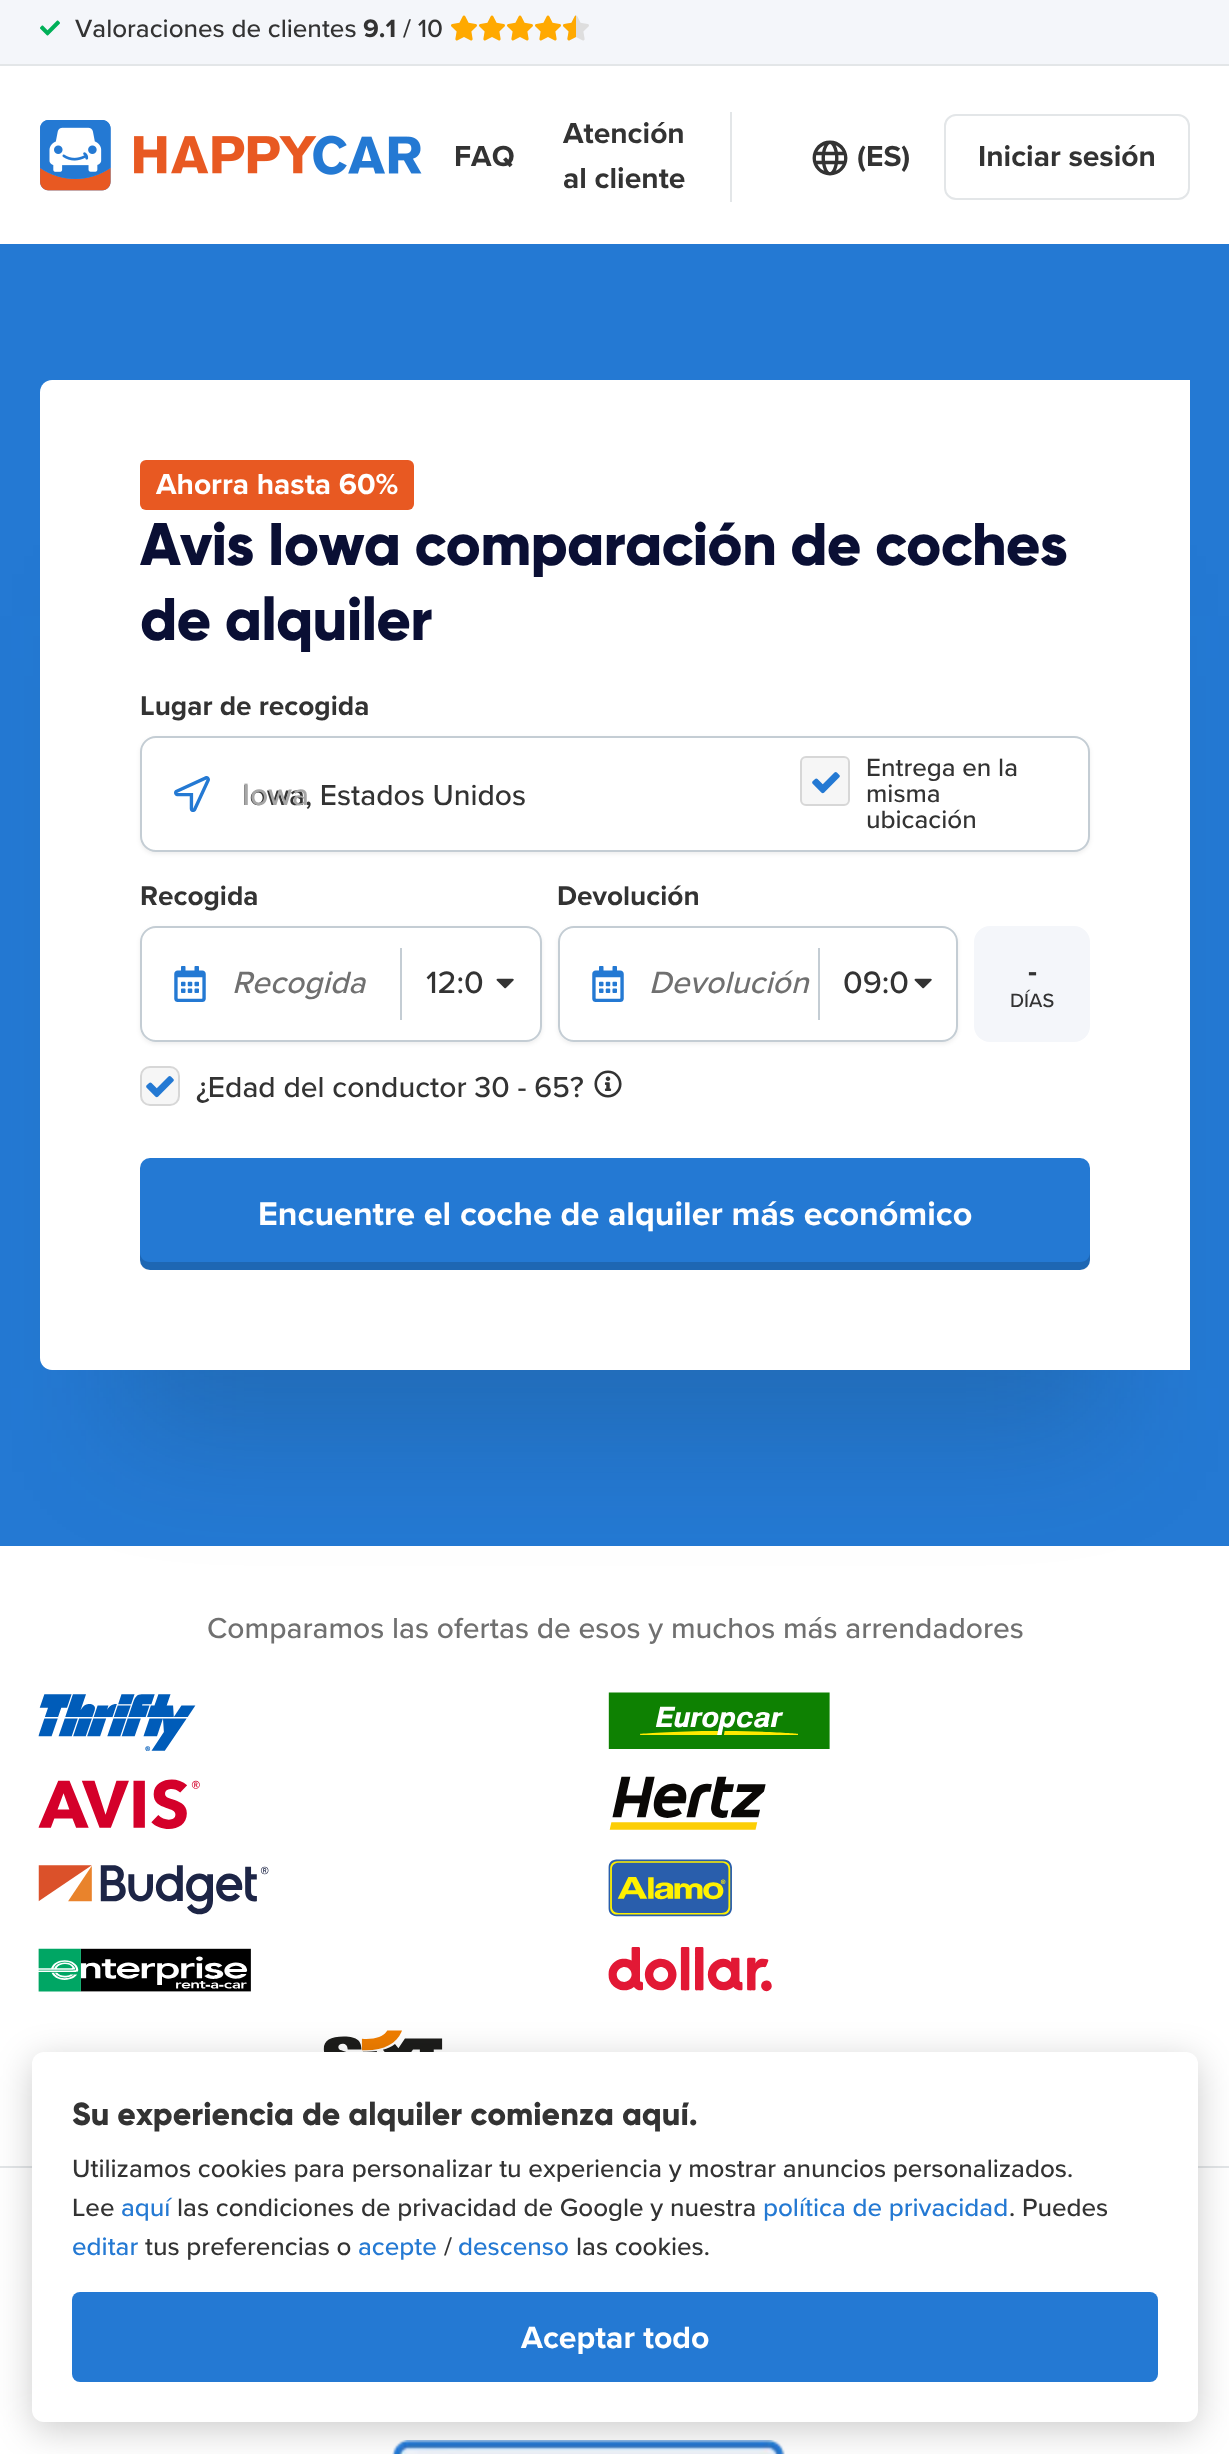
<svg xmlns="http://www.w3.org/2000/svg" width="1229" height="2454">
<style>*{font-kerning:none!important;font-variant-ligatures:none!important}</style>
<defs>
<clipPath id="clip1"><path d="M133 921h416v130h-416zm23 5h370c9 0 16 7 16 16v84c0 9-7 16-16 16h-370c-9 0-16-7-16-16v-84c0-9 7-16 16-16z" clip-rule="evenodd"/></clipPath>
<clipPath id="clip2"><path d="M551 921h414v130h-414zm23 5h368c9 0 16 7 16 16v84c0 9-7 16-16 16h-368c-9 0-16-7-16-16v-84c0-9 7-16 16-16z" clip-rule="evenodd"/></clipPath>
</defs>
<rect width="100%" height="100%" fill="#fff"/>
<rect width="1229" height="64" fill="#f4f6fa"/>
<rect y="64" width="1229" height="2" fill="#e3e6e8"/>
<image x="40" y="20" width="20" height="16" href="media/1.png"/>
<text x="75" y="37" style="font-family:Proxima Nova;font-size:26px;font-weight:500;fill:#333">Valoraciones de clientes</text>
<text x="363" y="37" style="font-family:Proxima Nova;font-size:26px;font-weight:bold;fill:#333">9.1</text>
<text x="403" y="37" style="font-family:Proxima Nova;font-size:26px;font-weight:500;fill:#333">/ 10</text>
<image x="451" y="15" width="26" height="26" href="media/2.png"/>
<image x="479" y="15" width="26" height="26" href="media/2.png"/>
<image x="507" y="15" width="26" height="26" href="media/3.png"/>
<image x="535" y="15" width="26" height="26" href="media/2.png"/>
<image x="563" y="15" width="26" height="26" href="media/4.png"/>
<image x="563" y="15" width="13" height="26" href="media/5.png"/>
<image x="40" y="120" width="382" height="71" href="media/6.png"/>
<rect x="730" y="112" width="2" height="90" fill="#e3e6e8"/>
<text x="454" y="166" style="font-family:Proxima Nova;font-size:30px;font-weight:bold;fill:#333">FAQ</text>
<text x="563" y="143" style="font-family:Proxima Nova;font-size:30px;font-weight:bold;fill:#333">Atención</text>
<text x="563" y="188" style="font-family:Proxima Nova;font-size:30px;font-weight:bold;fill:#333">al cliente</text>
<image x="812" y="140" width="36" height="36" href="media/7.png"/>
<text x="857" y="166" style="font-family:Proxima Nova;font-size:30px;font-weight:bold;fill:#333">(ES)</text>
<rect x="945" y="115" width="244" height="84" rx="11" fill="none" stroke="#e3e6e8" stroke-width="2"/>
<text x="978" y="166" style="font-family:Proxima Nova;font-size:30px;font-weight:bold;fill:#333">Iniciar sesión</text>
<rect y="244" width="1229" height="1302" fill="#2479d3"/>
<rect x="128" y="616" width="974" height="814" fill="#183b563b" filter="blur(64px)"/>
<path d="M52 380h1138v990h-1138c-6.5 0-12-5.5-12-12v-966c0-6.5 5.5-12 12-12z" fill="#fff"/>
<rect x="140" y="460" width="274" height="50" rx="6" fill="#e85922"/>
<text x="156" y="494" style="font-family:Proxima Nova;font-size:30px;font-weight:bold;fill:#fff">Ahorra hasta 60%</text>
<text x="140" y="565" style="font-family:Gilroy;font-size:60px;font-weight:800;letter-spacing:-0.8px;fill:#0a0f34">Avis Iowa comparación de coches</text>
<text x="140" y="640" style="font-family:Gilroy;font-size:60px;font-weight:800;letter-spacing:-0.8px;fill:#0a0f34">de alquiler</text>
<text x="140" y="715" style="font-family:Proxima Nova;font-size:28px;font-weight:bold;fill:#333">Lugar de recogida</text>
<rect x="140" y="738" width="950" height="116" rx="16" fill="#00000012" filter="blur(2px)"/>
<rect x="141" y="737" width="948" height="114" rx="15" fill="#fff" stroke="#c4cdd4" stroke-width="2"/>
<image x="174" y="776" width="36" height="36" href="media/8.png"/>
<text x="242" y="805" style="font-family:Proxima Nova;font-size:30px;font-weight:500;fill:#333">Iowa, Estados Unidos</text>
<text x="242" y="805" style="font-family:Proxima Nova;font-size:32px;font-weight:500;fill:#a6a6a6">Iowa</text>
<rect x="801" y="757" width="48" height="48" rx="5" fill="#f6f6f6" stroke="#d7d7d7" stroke-width="2"/>
<image x="812" y="772" width="28" height="22" href="media/9.png"/>
<text x="866" y="776" style="font-family:Proxima Nova;font-size:26px;font-weight:500;fill:#333">Entrega en la</text>
<text x="866" y="802" style="font-family:Proxima Nova;font-size:26px;font-weight:500;fill:#333">misma</text>
<text x="866" y="828" style="font-family:Proxima Nova;font-size:26px;font-weight:500;fill:#333">ubicación</text>
<text x="140" y="905" style="font-family:Proxima Nova;font-size:28px;font-weight:bold;fill:#333">Recogida</text>
<g clip-path="url(#clip1)">
<rect x="140" y="928" width="402" height="116" rx="16" fill="#00000012" filter="blur(2px)"/>
</g>
<rect x="141" y="927" width="400" height="114" rx="15" fill="none" stroke="#c4cdd4" stroke-width="2"/>
<image x="174" y="966" width="32" height="36" href="media/10.png"/>
<text x="232" y="993" style="font-family:Proxima Nova;font-size:32px;font-weight:500;font-style:italic;fill:#707070">Recogida</text>
<rect x="400" y="948" width="2" height="72" fill="#c4cdd4"/>
<text x="426" y="993" style="font-family:Proxima Nova;font-size:32px;font-weight:500;fill:#333">12:0</text>
<image x="496" y="978" width="18" height="11" href="media/11.png"/>
<text x="557" y="905" style="font-family:Proxima Nova;font-size:28px;font-weight:bold;fill:#333">Devolución</text>
<g clip-path="url(#clip2)">
<rect x="558" y="928" width="400" height="116" rx="16" fill="#00000012" filter="blur(2px)"/>
</g>
<rect x="559" y="927" width="398" height="114" rx="15" fill="none" stroke="#c4cdd4" stroke-width="2"/>
<image x="592" y="966" width="32" height="36" href="media/10.png"/>
<text x="649" y="993" style="font-family:Proxima Nova;font-size:32px;font-weight:500;font-style:italic;fill:#707070">Devolución</text>
<rect x="818" y="948" width="2" height="72" fill="#c4cdd4"/>
<text x="843" y="993" style="font-family:Proxima Nova;font-size:32px;font-weight:500;fill:#333">09:0</text>
<image x="914" y="978" width="18" height="11" href="media/12.png"/>
<rect x="974" y="926" width="116" height="116" rx="16" fill="#f4f6fa"/>
<text x="1028" y="981" style="font-family:Proxima Nova;font-size:30px;font-weight:bold;fill:#333">-</text>
<text x="1010" y="1007" style="font-family:Proxima Nova;font-size:20px;font-weight:500;fill:#333">DÍAS</text>
<rect x="141" y="1067" width="38" height="38" rx="9" fill="#f6f6f6" stroke="#d7d7d7" stroke-width="2"/>
<image x="146" y="1076" width="28" height="22" href="media/9.png"/>
<text x="196" y="1097" style="font-family:Proxima Nova;font-size:30px;font-weight:500;fill:#333">¿Edad del conductor 30 - 65?</text>
<image x="594" y="1070" width="28" height="28" href="media/13.png"/>
<rect x="140" y="1158" width="950" height="112" rx="10" fill="#2479d3"/>
<path d="M140 1252c0 7-1 18 10 18h930c11 0 10-11 10-18c0 6-4 10-10 10h-930c-6 0-10-4-10-10z" fill="#00000026"/>
<text x="258" y="1225" style="font-family:Proxima Nova;font-size:34px;font-weight:bold;fill:#fff">Encuentre el coche de alquiler más económico</text>
<rect y="2166" width="1229" height="2" fill="#e3e6e8"/>
<text x="207" y="1638" style="font-family:Proxima Nova;font-size:30px;font-weight:500;fill:#707070">Comparamos las ofertas de esos y muchos más arrendadores</text>
<image x="38" y="1694" width="158" height="57" href="media/14.png"/>
<image x="608" y="1692" width="222" height="57" href="media/15.png"/>
<image x="38" y="1779" width="162" height="50" href="media/16.png"/>
<image x="609" y="1776" width="157" height="54" href="media/17.png"/>
<image x="38" y="1865" width="231" height="50" href="media/18.png"/>
<image x="608" y="1859" width="124" height="58" href="media/19.png"/>
<image x="38" y="1948" width="213" height="44" href="media/20.png"/>
<image x="608" y="1947" width="164" height="45" href="media/21.png"/>
<image x="323" y="2030" width="120" height="22" href="media/22.png"/>
<image x="392" y="2440" width="393" height="14" href="media/23.png"/>
<rect x="32" y="2060" width="1166" height="370" rx="12" fill="#00000033" filter="blur(18px)"/>
<rect x="32" y="2052" width="1166" height="370" rx="12" fill="#fff"/>
<text x="72" y="2125" style="font-family:Gilroy;font-size:32px;font-weight:800;fill:#333">Su experiencia de alquiler comienza aquí.</text>
<text x="72" y="2177" style="font-family:Proxima Nova;font-size:26px;font-weight:500;fill:#333">Utilizamos cookies para personalizar tu experiencia y mostrar anuncios personalizados.</text>
<text x="72" y="2216" style="font-family:Proxima Nova;font-size:26px;font-weight:500;fill:#333">Lee</text>
<text x="121" y="2216" style="font-family:Proxima Nova;font-size:26px;font-weight:500;fill:#2479d3">aquí</text>
<text x="177" y="2216" style="font-family:Proxima Nova;font-size:26px;font-weight:500;fill:#333">las condiciones de privacidad de Google y nuestra</text>
<text x="763" y="2216" style="font-family:Proxima Nova;font-size:26px;font-weight:500;fill:#2479d3">política de privacidad</text>
<text x="1009" y="2216" style="font-family:Proxima Nova;font-size:26px;font-weight:500;fill:#333">. Puedes</text>
<text x="72" y="2255" style="font-family:Proxima Nova;font-size:26px;font-weight:500;fill:#2479d3">editar</text>
<text x="145" y="2255" style="font-family:Proxima Nova;font-size:26px;font-weight:500;fill:#333">tus preferencias o</text>
<text x="358" y="2255" style="font-family:Proxima Nova;font-size:26px;font-weight:500;fill:#2479d3">acepte</text>
<text x="444" y="2255" style="font-family:Proxima Nova;font-size:26px;font-weight:500;fill:#333">/</text>
<text x="458" y="2255" style="font-family:Proxima Nova;font-size:26px;font-weight:500;fill:#2479d3">descenso</text>
<text x="576" y="2255" style="font-family:Proxima Nova;font-size:26px;font-weight:500;fill:#333">las cookies.</text>
<rect x="72" y="2292" width="1086" height="90" rx="8" fill="#2479d3"/>
<text x="521" y="2348" style="font-family:Proxima Nova;font-size:32px;font-weight:bold;fill:#fff">Aceptar todo</text>
</svg>
